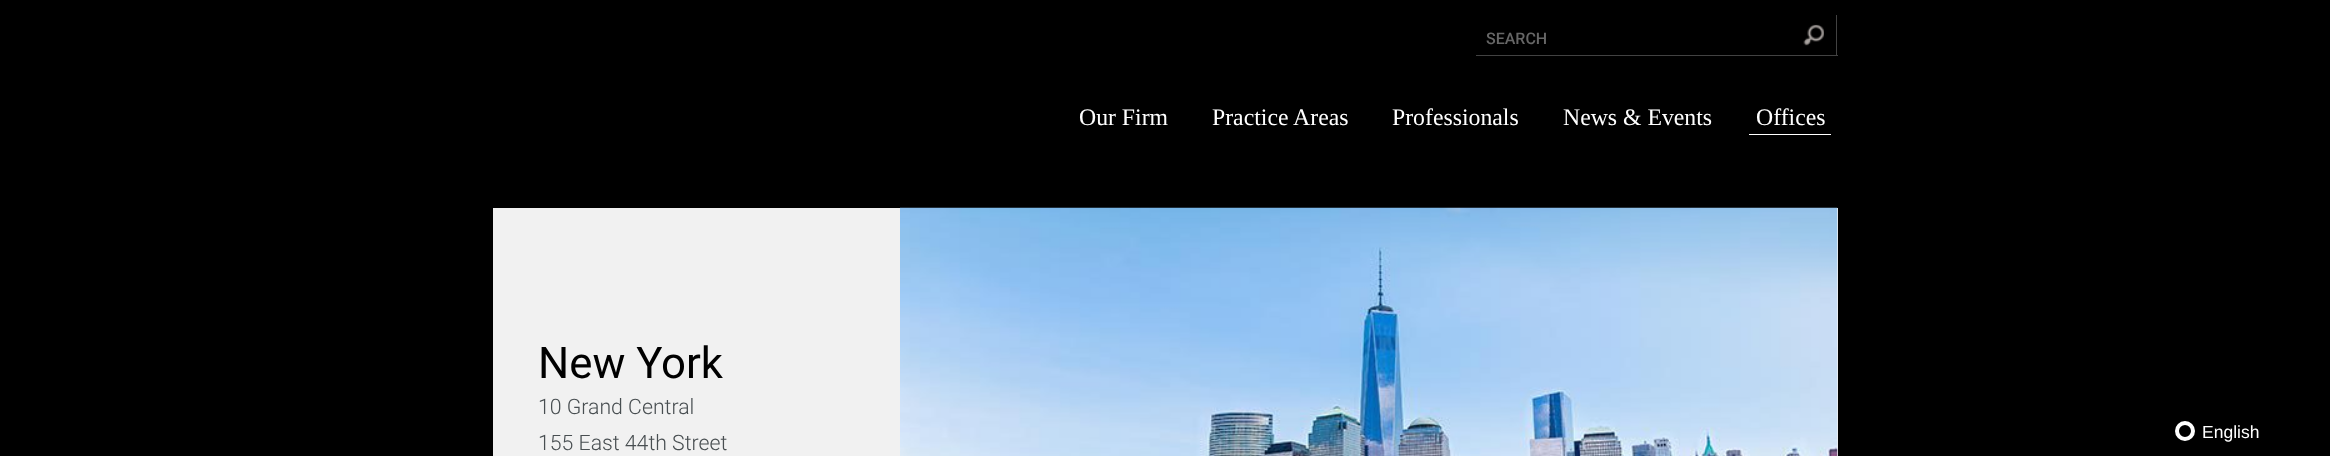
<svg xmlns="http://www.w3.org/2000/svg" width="2330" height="456">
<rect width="100%" height="100%" fill="#000"/>
<rect x="1836" y="15" width="1" height="41" fill="#424242"/>
<rect x="1476" y="55" width="362" height="1" fill="#424242"/>
<text x="1486" y="44" style="font-family:Roboto;font-size:16px;font-weight:500;fill:#666">SEARCH</text>
<image x="1803" y="24" width="21" height="22" href="media/1.png"/>
<rect x="493" y="208" width="1345" height="248" fill="#f1f1f1"/>
<text x="538" y="378" style="font-family:Roboto;font-size:43.75px;fill:#000">New York</text>
<text x="538" y="414" style="font-family:Roboto;font-size:21.25px;font-weight:300;fill:#484e51">10 Grand Central</text>
<text x="538" y="450" style="font-family:Roboto;font-size:21.25px;font-weight:300;fill:#484e51">155 East 44th Street</text>
<image x="900" y="207" width="938" height="249" href="media/2.png"/>
<text x="1079" y="125" style="font-family:Liberation Serif;font-size:23.75px;fill:#fff">Our Firm</text>
<text x="1212" y="125" style="font-family:Liberation Serif;font-size:23.75px;fill:#fff">Practice Areas</text>
<text x="1392" y="125" style="font-family:Liberation Serif;font-size:23.75px;fill:#fff">Professionals</text>
<text x="1563" y="125" style="font-family:Liberation Serif;font-size:23.75px;fill:#fff">News &amp; Events</text>
<text x="1756" y="125" style="font-family:Liberation Serif;font-size:23.75px;fill:#fff">Offices</text>
<rect x="1749" y="134" width="82" height="1" fill="#fff"/>
<circle cx="2185" cy="431" r="8" fill="none" stroke="#fff" stroke-width="4"/>
<text x="2202" y="438" style="font-family:Liberation Sans;font-size:17.5px;fill:#fff">English</text>
</svg>
